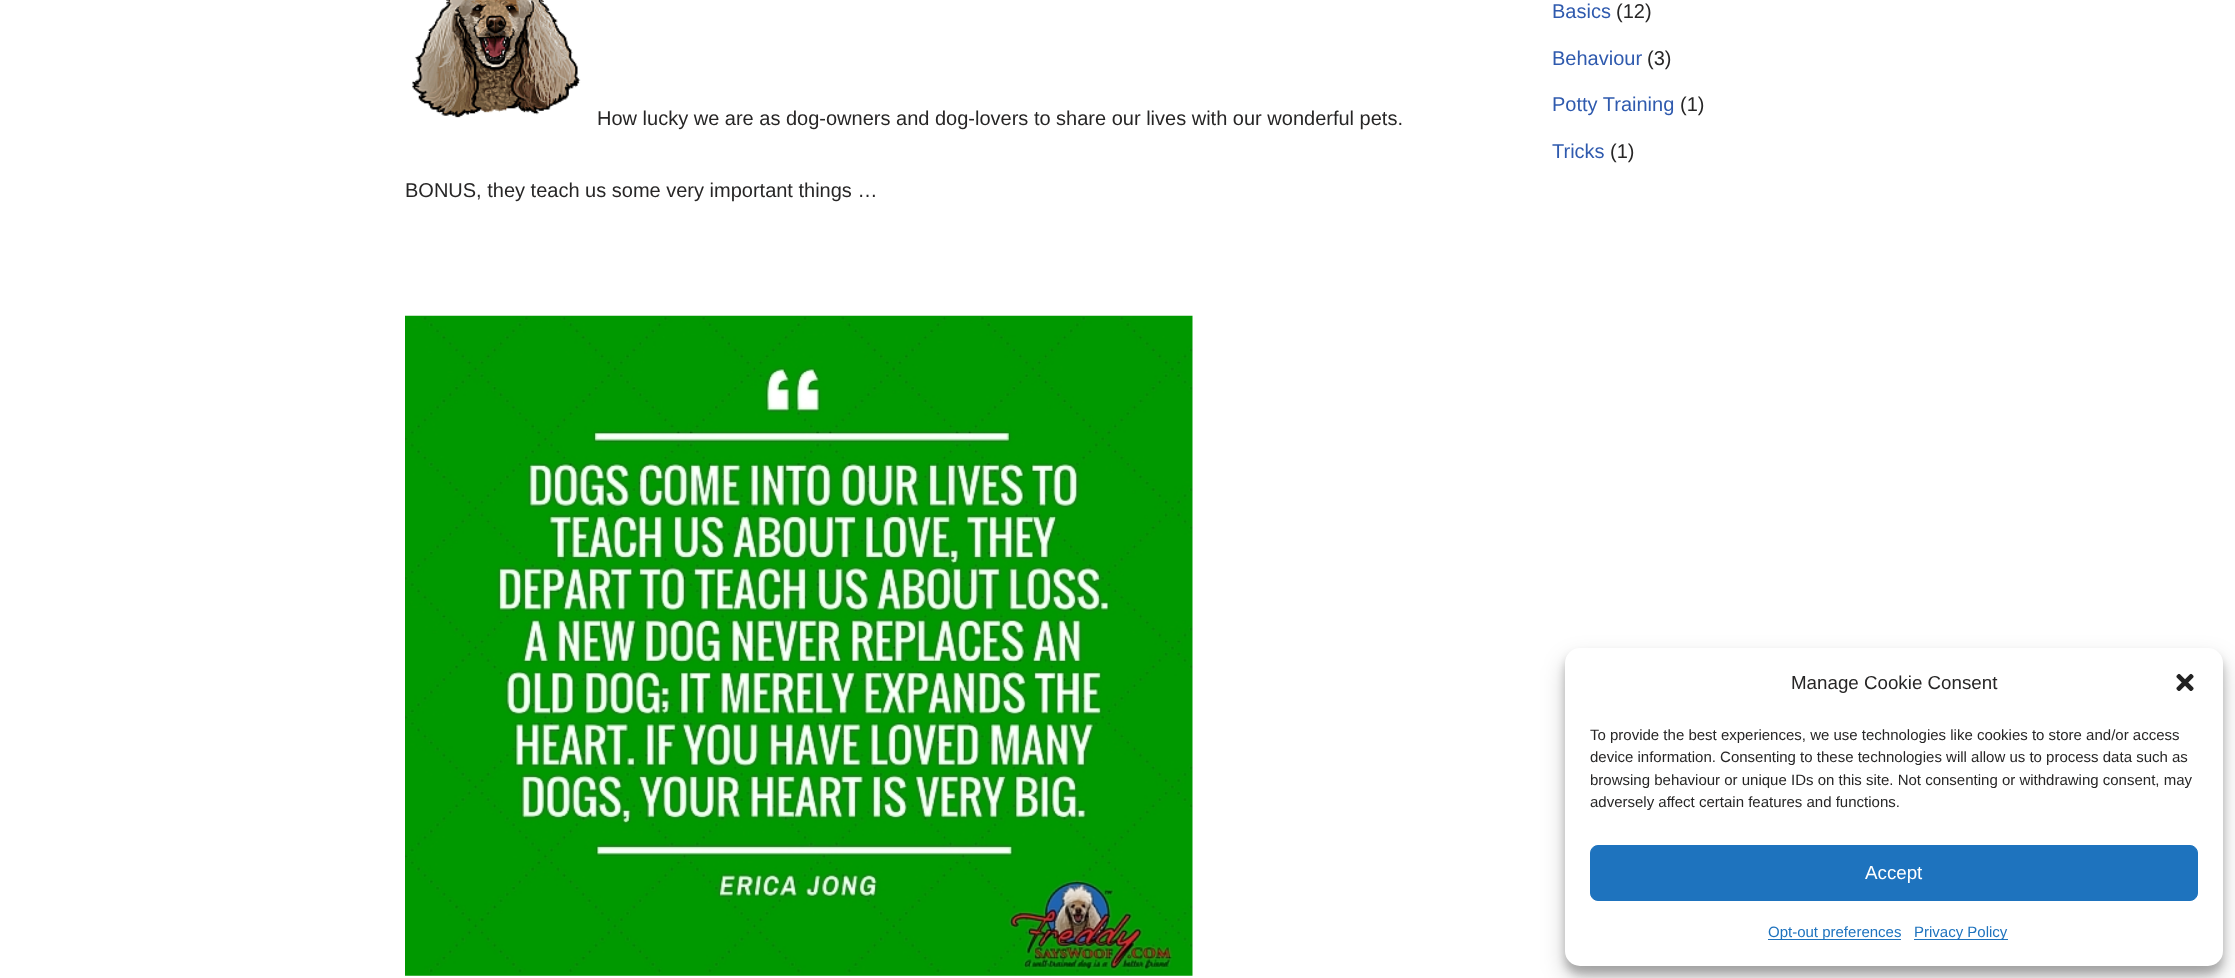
<svg xmlns="http://www.w3.org/2000/svg" width="2235" height="978">
<rect width="100%" height="100%" fill="#fff"/>
<image x="412" y="0" width="169" height="118" href="media/1.png"/>
<text x="597" y="125" style="font-family:Liberation Sans;font-size:20px;fill:#272626">How lucky we are as dog-owners and dog-lovers to share our lives with our wonderful pets.</text>
<text x="405" y="197" style="font-family:Liberation Sans;font-size:20px;fill:#272626">BONUS, they teach us some very important things …</text>
<image x="405" y="315" width="788" height="661" href="media/2.png"/>
<text x="1552" y="18" style="font-family:Liberation Sans;font-size:20px;fill:#2f5aae">Basics</text>
<text x="1616" y="18" style="font-family:Liberation Sans;font-size:20px;fill:#272626">(12)</text>
<text x="1552" y="65" style="font-family:Liberation Sans;font-size:20px;fill:#2f5aae">Behaviour</text>
<text x="1647" y="65" style="font-family:Liberation Sans;font-size:20px;fill:#272626">(3)</text>
<text x="1552" y="111" style="font-family:Liberation Sans;font-size:20px;fill:#2f5aae">Potty Training</text>
<text x="1680" y="111" style="font-family:Liberation Sans;font-size:20px;fill:#272626">(1)</text>
<text x="1552" y="158" style="font-family:Liberation Sans;font-size:20px;fill:#2f5aae">Tricks</text>
<text x="1610" y="158" style="font-family:Liberation Sans;font-size:20px;fill:#272626">(1)</text>
<rect x="1565" y="655" width="658" height="319" rx="15" fill="#0000003b" filter="blur(4px)"/>
<rect x="1565" y="660" width="658" height="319" rx="15" fill="#00000030" filter="blur(12.5px)"/>
<rect x="1565" y="648" width="658" height="318" rx="15" fill="#fff"/>
<text x="1791" y="689" style="font-family:Liberation Sans;font-size:18.75px;fill:#272626">Manage Cookie Consent</text>
<image x="2176" y="673" width="18" height="18" href="media/3.png"/>
<text x="1590" y="740" style="font-family:Liberation Sans;font-size:15px;fill:#272626">To provide the best experiences, we use technologies like cookies to store and/or access</text>
<text x="1590" y="762" style="font-family:Liberation Sans;font-size:15px;fill:#272626">device information. Consenting to these technologies will allow us to process data such as</text>
<text x="1590" y="785" style="font-family:Liberation Sans;font-size:15px;fill:#272626">browsing behaviour or unique IDs on this site. Not consenting or withdrawing consent, may</text>
<text x="1590" y="807" style="font-family:Liberation Sans;font-size:15px;fill:#272626">adversely affect certain features and functions.</text>
<rect x="1590.5" y="845.5" width="607" height="55" rx="7.5" fill="#1e73be" stroke="#1e73be"/>
<text x="1865" y="879" style="font-family:Liberation Sans;font-size:18.75px;fill:#fff">Accept</text>
<rect x="1768" y="939" width="133" height="1" fill="#1e73be"/>
<text x="1768" y="937" style="font-family:Liberation Sans;font-size:15px;fill:#1e73be">Opt-out preferences</text>
<rect x="1914" y="939" width="94" height="1" fill="#1e73be"/>
<text x="1914" y="937" style="font-family:Liberation Sans;font-size:15px;fill:#1e73be">Privacy Policy</text>
</svg>
